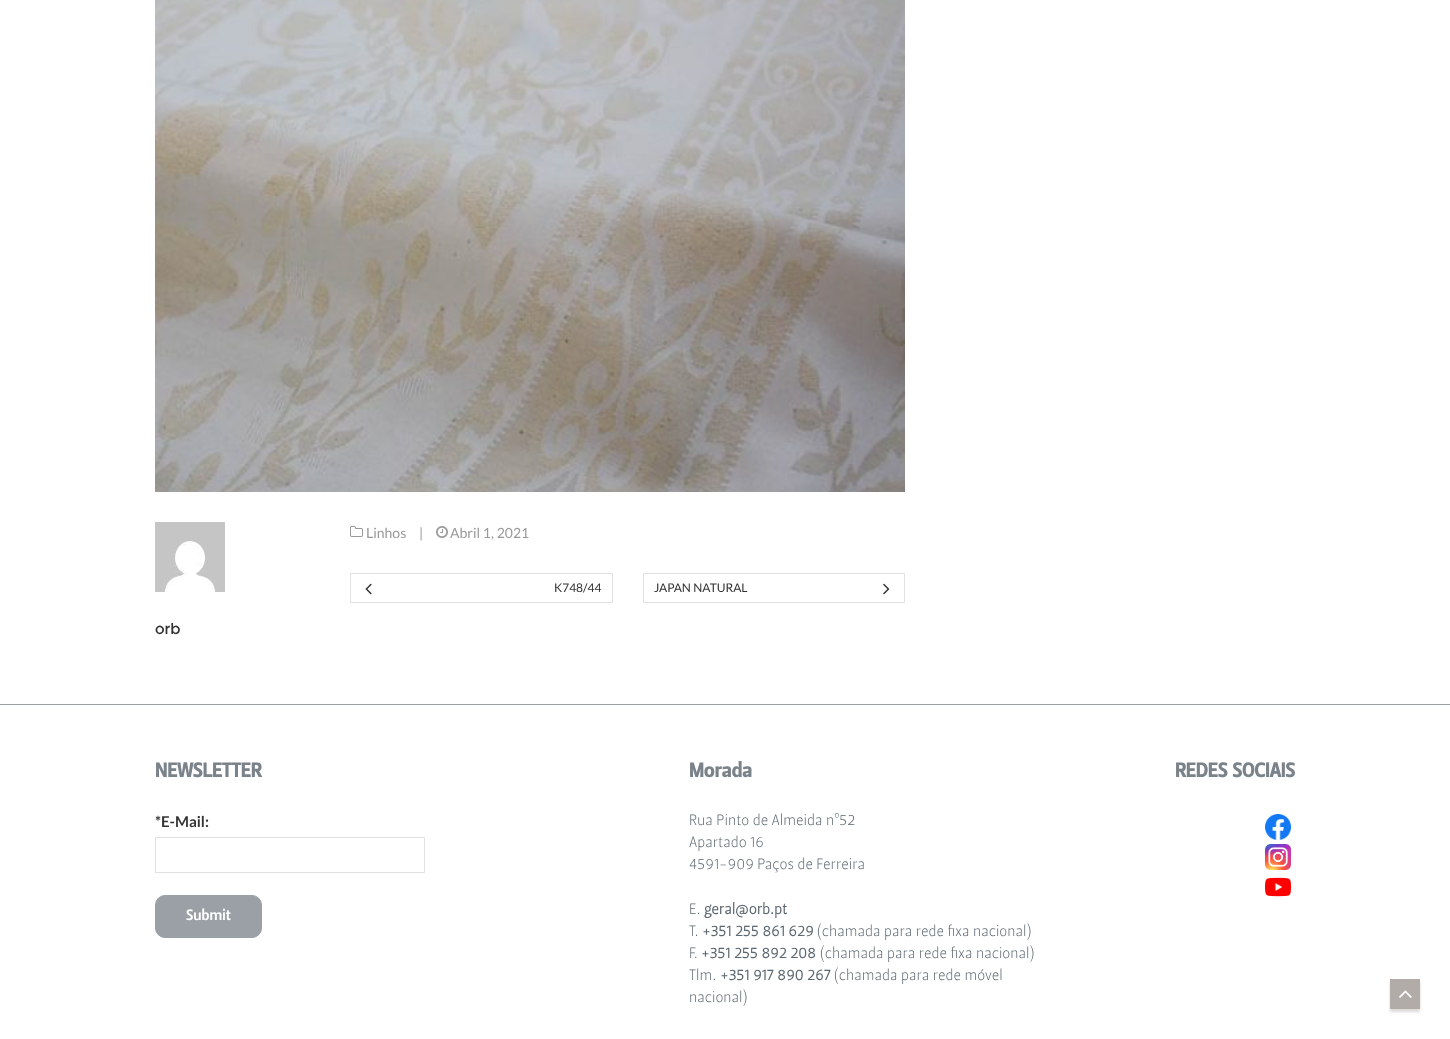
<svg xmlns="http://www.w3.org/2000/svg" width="1450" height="1039">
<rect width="100%" height="100%" fill="#fff"/>
<image x="155" y="0" width="750" height="492" href="media/1.png"/>
<image x="350" y="526" width="13" height="11" href="media/2.png"/>
<text x="366" y="538" style="font-family:Lato;font-size:14px;fill:#9a9a9a">Linhos</text>
<text x="419" y="538" style="font-family:Lato;font-size:14px;fill:#9a9a9a">|</text>
<image x="436" y="526" width="12" height="12" href="media/3.png"/>
<text x="450" y="538" style="font-family:Lato;font-size:14px;fill:#9a9a9a">Abril 1, 2021</text>
<rect x="350.5" y="573.5" width="262" height="29" fill="none" stroke="#e1e1e1"/>
<image x="365" y="583" width="7" height="12" href="media/4.png"/>
<text x="554" y="592" style="font-family:Lato;font-size:12px;fill:#333">K748/44</text>
<rect x="643.5" y="573.5" width="261" height="29" fill="none" stroke="#e1e1e1"/>
<text x="654" y="592" style="font-family:Lato;font-size:12px;fill:#333">JAPAN NATURAL</text>
<image x="883" y="583" width="7" height="12" href="media/5.png"/>
<image x="155" y="522" width="70" height="70" href="media/6.png"/>
<text x="155" y="634" style="font-family:Poppins;font-size:15px;font-weight:500;fill:#333">orb</text>
<rect y="704" width="1450" height="1" fill="#9aa0a5"/>
<text x="155" y="777" style="font-family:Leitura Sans;font-size:20px;font-weight:bold;fill:#7a828a">NEWSLETTER</text>
<text x="155" y="827" style="font-family:Lato;font-size:15px;font-weight:bold;fill:#333">*E-Mail:</text>
<rect x="155.5" y="837.5" width="269" height="35" fill="none" stroke="#e1e1e1"/>
<rect x="155.5" y="895.5" width="106" height="42" rx="9.5" fill="#9aa0a5" stroke="#9aa0a5"/>
<text x="186" y="920" style="font-family:Leitura Sans;font-size:15px;fill:#fff">Submit</text>
<text x="689" y="777" style="font-family:Leitura Sans;font-size:20px;font-weight:bold;fill:#7a828a">Morada</text>
<text x="689" y="825" style="font-family:'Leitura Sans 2';font-size:15px;fill:#5c666f">Rua Pinto de Almeida nº52</text>
<text x="689" y="847" style="font-family:'Leitura Sans 2';font-size:15px;fill:#5c666f">Apartado 16</text>
<text x="689" y="869" style="font-family:'Leitura Sans 2';font-size:15px;fill:#5c666f">4591-909 Paços de Ferreira</text>
<text x="689" y="914" style="font-family:'Leitura Sans 2';font-size:15px;fill:#5c666f">E.</text>
<text x="704" y="914" style="font-family:'Leitura Sans 2';font-size:15px;font-weight:bold;fill:#5c666f">geral@orb.pt</text>
<text x="689" y="936" style="font-family:'Leitura Sans 2';font-size:15px;fill:#5c666f">T.</text>
<text x="702" y="936" style="font-family:'Leitura Sans 2';font-size:15px;font-weight:bold;fill:#5c666f">+351 255 861 629</text>
<text x="817" y="936" style="font-family:'Leitura Sans 2';font-size:15px;fill:#5c666f">(chamada para rede fixa nacional)</text>
<text x="689" y="958" style="font-family:'Leitura Sans 2';font-size:15px;fill:#5c666f">F.</text>
<text x="701" y="958" style="font-family:'Leitura Sans 2';font-size:15px;font-weight:bold;fill:#5c666f">+351 255 892 208</text>
<text x="820" y="958" style="font-family:'Leitura Sans 2';font-size:15px;fill:#5c666f">(chamada para rede fixa nacional)</text>
<text x="689" y="980" style="font-family:'Leitura Sans 2';font-size:15px;fill:#5c666f">Tlm.</text>
<text x="720" y="980" style="font-family:'Leitura Sans 2';font-size:15px;font-weight:bold;fill:#5c666f">+351 917 890 267</text>
<text x="834" y="980" style="font-family:'Leitura Sans 2';font-size:15px;fill:#5c666f">(chamada para rede móvel</text>
<text x="689" y="1002" style="font-family:'Leitura Sans 2';font-size:15px;fill:#5c666f">nacional)</text>
<text x="1175" y="777" style="font-family:Leitura Sans;font-size:20px;font-weight:bold;fill:#7a828a">REDES SOCIAIS</text>
<image x="1265" y="814" width="26" height="26" href="media/7.png"/>
<image x="1265" y="844" width="26" height="26" href="media/8.png"/>
<image x="1265" y="877" width="26" height="20" href="media/9.png"/>
<rect x="1390" y="982" width="30" height="30" fill="#00000026" filter="blur(1.5px)"/>
<rect x="1390" y="979" width="30" height="30" fill="#b2aca8"/>
<image x="1399" y="990" width="13" height="8" href="media/10.png"/>
</svg>
